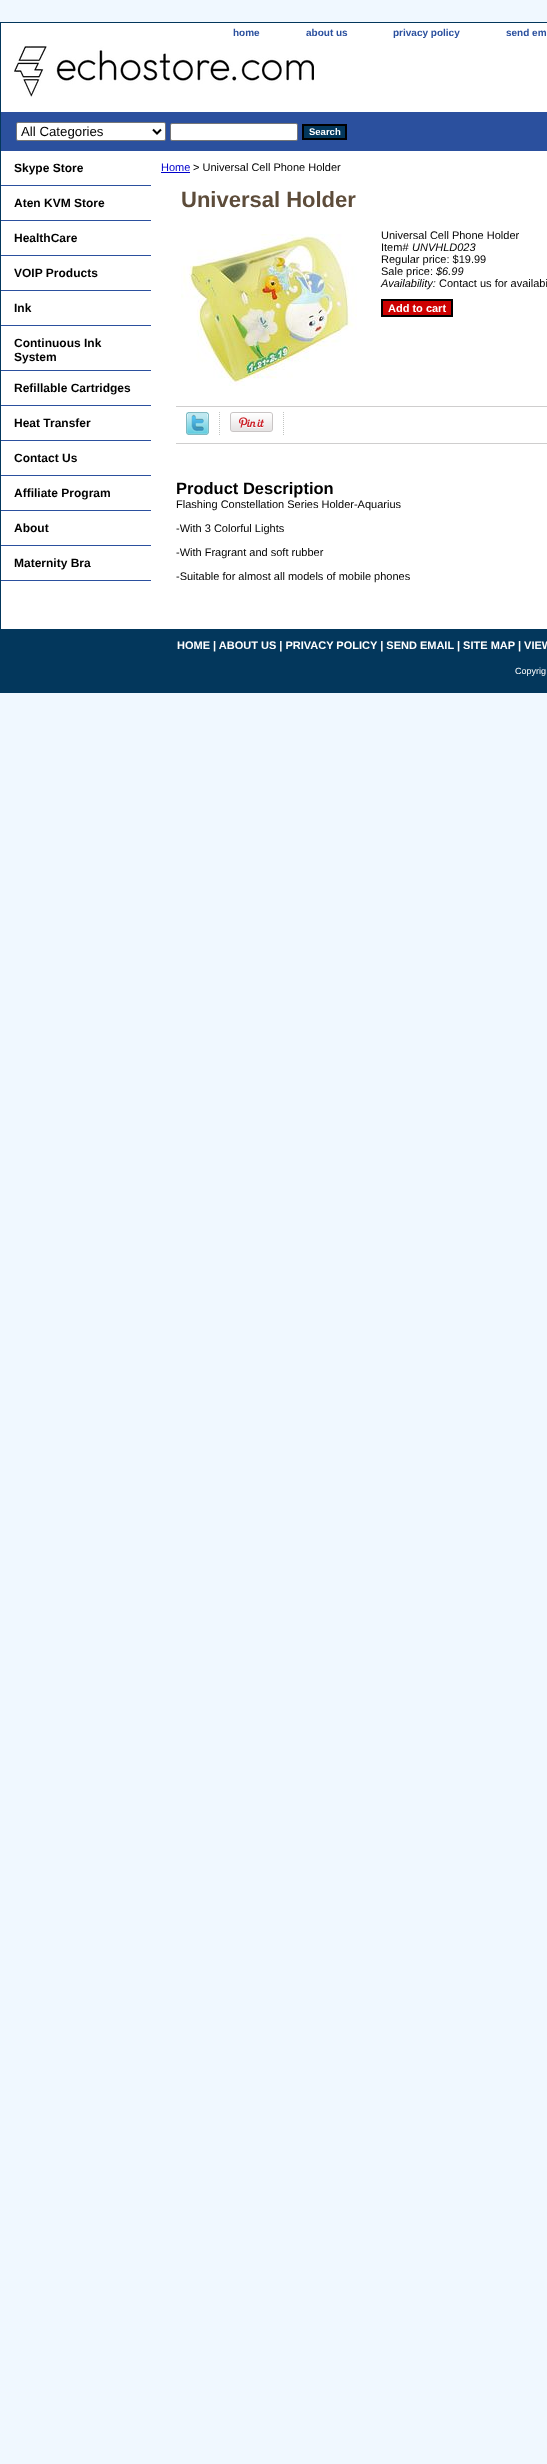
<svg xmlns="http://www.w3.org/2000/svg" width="547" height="2464">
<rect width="100%" height="100%" fill="#f0f8ff"/>
<rect x="1" y="23" width="546" height="606" fill="#fff"/>
<rect x="0.5" y="22.5" width="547" height="670" fill="none" stroke="#03375c"/>
<text x="233" y="36" style="font-family:Liberation Sans;font-size:10px;font-weight:bold;fill:#2b509e">home</text>
<text x="306" y="36" style="font-family:Liberation Sans;font-size:10px;font-weight:bold;fill:#2b509e">about us</text>
<text x="393" y="36" style="font-family:Liberation Sans;font-size:10px;font-weight:bold;fill:#2b509e">privacy policy</text>
<text x="506" y="36" style="font-family:Liberation Sans;font-size:10px;font-weight:bold;fill:#2b509e">send em</text>
<image x="14" y="46" width="300" height="51" href="media/1.png"/>
<rect x="1" y="112" width="546" height="39" fill="#2b509e"/>
<rect x="16.5" y="122.5" width="149" height="18" rx="1.5" fill="#fff" stroke="#767676"/>
<path d="M153 129.5l4 4l4-4" fill="none" stroke="#000" stroke-width="2"/>
<text x="21" y="136" style="font-family:Liberation Sans;font-size:13.25px;fill:#000">All Categories</text>
<rect x="170.5" y="123.5" width="127" height="17" rx="1.5" fill="#fff" stroke="#767676"/>
<rect x="303" y="125" width="43" height="14" fill="#03375c" stroke="#000" stroke-width="2"/>
<text x="309" y="135" style="font-family:Liberation Sans;font-size:9.5px;font-weight:bold;fill:#fff">Search</text>
<rect x="1" y="185" width="150" height="1" fill="#2b509e"/>
<text x="14" y="172" style="font-family:Liberation Sans;font-size:12px;font-weight:bold;fill:#000">Skype Store</text>
<rect x="1" y="220" width="150" height="1" fill="#2b509e"/>
<text x="14" y="207" style="font-family:Liberation Sans;font-size:12px;font-weight:bold;fill:#000">Aten KVM Store</text>
<rect x="1" y="255" width="150" height="1" fill="#2b509e"/>
<text x="14" y="242" style="font-family:Liberation Sans;font-size:12px;font-weight:bold;fill:#000">HealthCare</text>
<rect x="1" y="290" width="150" height="1" fill="#2b509e"/>
<text x="14" y="277" style="font-family:Liberation Sans;font-size:12px;font-weight:bold;fill:#000">VOIP Products</text>
<rect x="1" y="325" width="150" height="1" fill="#2b509e"/>
<text x="14" y="312" style="font-family:Liberation Sans;font-size:12px;font-weight:bold;fill:#000">Ink</text>
<rect x="1" y="370" width="150" height="1" fill="#2b509e"/>
<text x="14" y="347" style="font-family:Liberation Sans;font-size:12px;font-weight:bold;fill:#000">Continuous Ink</text>
<text x="14" y="361" style="font-family:Liberation Sans;font-size:12px;font-weight:bold;fill:#000">System</text>
<rect x="1" y="405" width="150" height="1" fill="#2b509e"/>
<text x="14" y="392" style="font-family:Liberation Sans;font-size:12px;font-weight:bold;fill:#000">Refillable Cartridges</text>
<rect x="1" y="440" width="150" height="1" fill="#2b509e"/>
<text x="14" y="427" style="font-family:Liberation Sans;font-size:12px;font-weight:bold;fill:#000">Heat Transfer</text>
<rect x="1" y="475" width="150" height="1" fill="#2b509e"/>
<text x="14" y="462" style="font-family:Liberation Sans;font-size:12px;font-weight:bold;fill:#000">Contact Us</text>
<rect x="1" y="510" width="150" height="1" fill="#2b509e"/>
<text x="14" y="497" style="font-family:Liberation Sans;font-size:12px;font-weight:bold;fill:#000">Affiliate Program</text>
<rect x="1" y="545" width="150" height="1" fill="#2b509e"/>
<text x="14" y="532" style="font-family:Liberation Sans;font-size:12px;font-weight:bold;fill:#000">About</text>
<rect x="1" y="580" width="150" height="1" fill="#2b509e"/>
<text x="14" y="567" style="font-family:Liberation Sans;font-size:12px;font-weight:bold;fill:#000">Maternity Bra</text>
<text x="161" y="171" style="font-family:Liberation Sans;font-size:11px;fill:#00c">Home</text>
<rect x="161" y="172" width="29" height="1" fill="#00c"/>
<text x="193" y="171" style="font-family:Liberation Sans;font-size:11px;fill:#000">&gt; Universal Cell Phone Holder</text>
<text x="181" y="207" style="font-family:Liberation Sans;font-size:22px;font-weight:bold;fill:#5d4c3a">Universal Holder</text>
<image x="181" y="234" width="176" height="152" href="media/2.png"/>
<text x="381" y="239" style="font-family:Liberation Sans;font-size:11px;fill:#000">Universal Cell Phone Holder</text>
<text x="381" y="251" style="font-family:Liberation Sans;font-size:11px;fill:#000">Item#</text>
<text x="412" y="251" style="font-family:Liberation Sans;font-size:11px;font-style:italic;fill:#000">UNVHLD023</text>
<text x="381" y="263" style="font-family:Liberation Sans;font-size:11px;fill:#000">Regular price: $19.99</text>
<text x="381" y="275" style="font-family:Liberation Sans;font-size:11px;fill:#000">Sale price:</text>
<text x="436" y="275" style="font-family:Liberation Sans;font-size:11px;font-style:italic;fill:#000">$6.99</text>
<text x="381" y="287" style="font-family:Liberation Sans;font-size:11px;font-style:italic;fill:#000">Availability:</text>
<text x="439" y="287" style="font-family:Liberation Sans;font-size:11px;fill:#000">Contact us for availabi</text>
<rect x="382" y="300" width="70" height="16" fill="#cd0000" stroke="#000" stroke-width="2"/>
<text x="388" y="312" style="font-family:Liberation Sans;font-size:11px;font-weight:bold;fill:#fff">Add to cart</text>
<rect x="176" y="406" width="371" height="1" fill="#cfcece"/>
<image x="186" y="412" width="23" height="23" href="media/3.png"/>
<image x="219" y="412" width="1" height="23" href="media/4.png"/>
<image x="230" y="412" width="43" height="20" href="media/5.png"/>
<image x="283" y="412" width="1" height="23" href="media/4.png"/>
<rect x="176" y="443" width="371" height="1" fill="#cfcece"/>
<text x="176" y="494" style="font-family:Liberation Sans;font-size:16.5px;font-weight:bold;fill:#000">Product Description</text>
<text x="176" y="508" style="font-family:Liberation Sans;font-size:11px;fill:#000">Flashing Constellation Series Holder-Aquarius</text>
<text x="176" y="532" style="font-family:Liberation Sans;font-size:11px;fill:#000">-With 3 Colorful Lights</text>
<text x="176" y="556" style="font-family:Liberation Sans;font-size:11px;fill:#000">-With Fragrant and soft rubber</text>
<text x="176" y="580" style="font-family:Liberation Sans;font-size:11px;fill:#000">-Suitable for almost all models of mobile phones</text>
<rect x="1" y="629" width="546" height="63" fill="#03375c"/>
<text x="177" y="649" style="font-family:Liberation Sans;font-size:11px;font-weight:bold;fill:#fff">HOME | ABOUT US | PRIVACY POLICY | SEND EMAIL | SITE MAP | VIEW</text>
<text x="515" y="674" style="font-family:Liberation Sans;font-size:9px;fill:#fff">Copyrig</text>
</svg>
